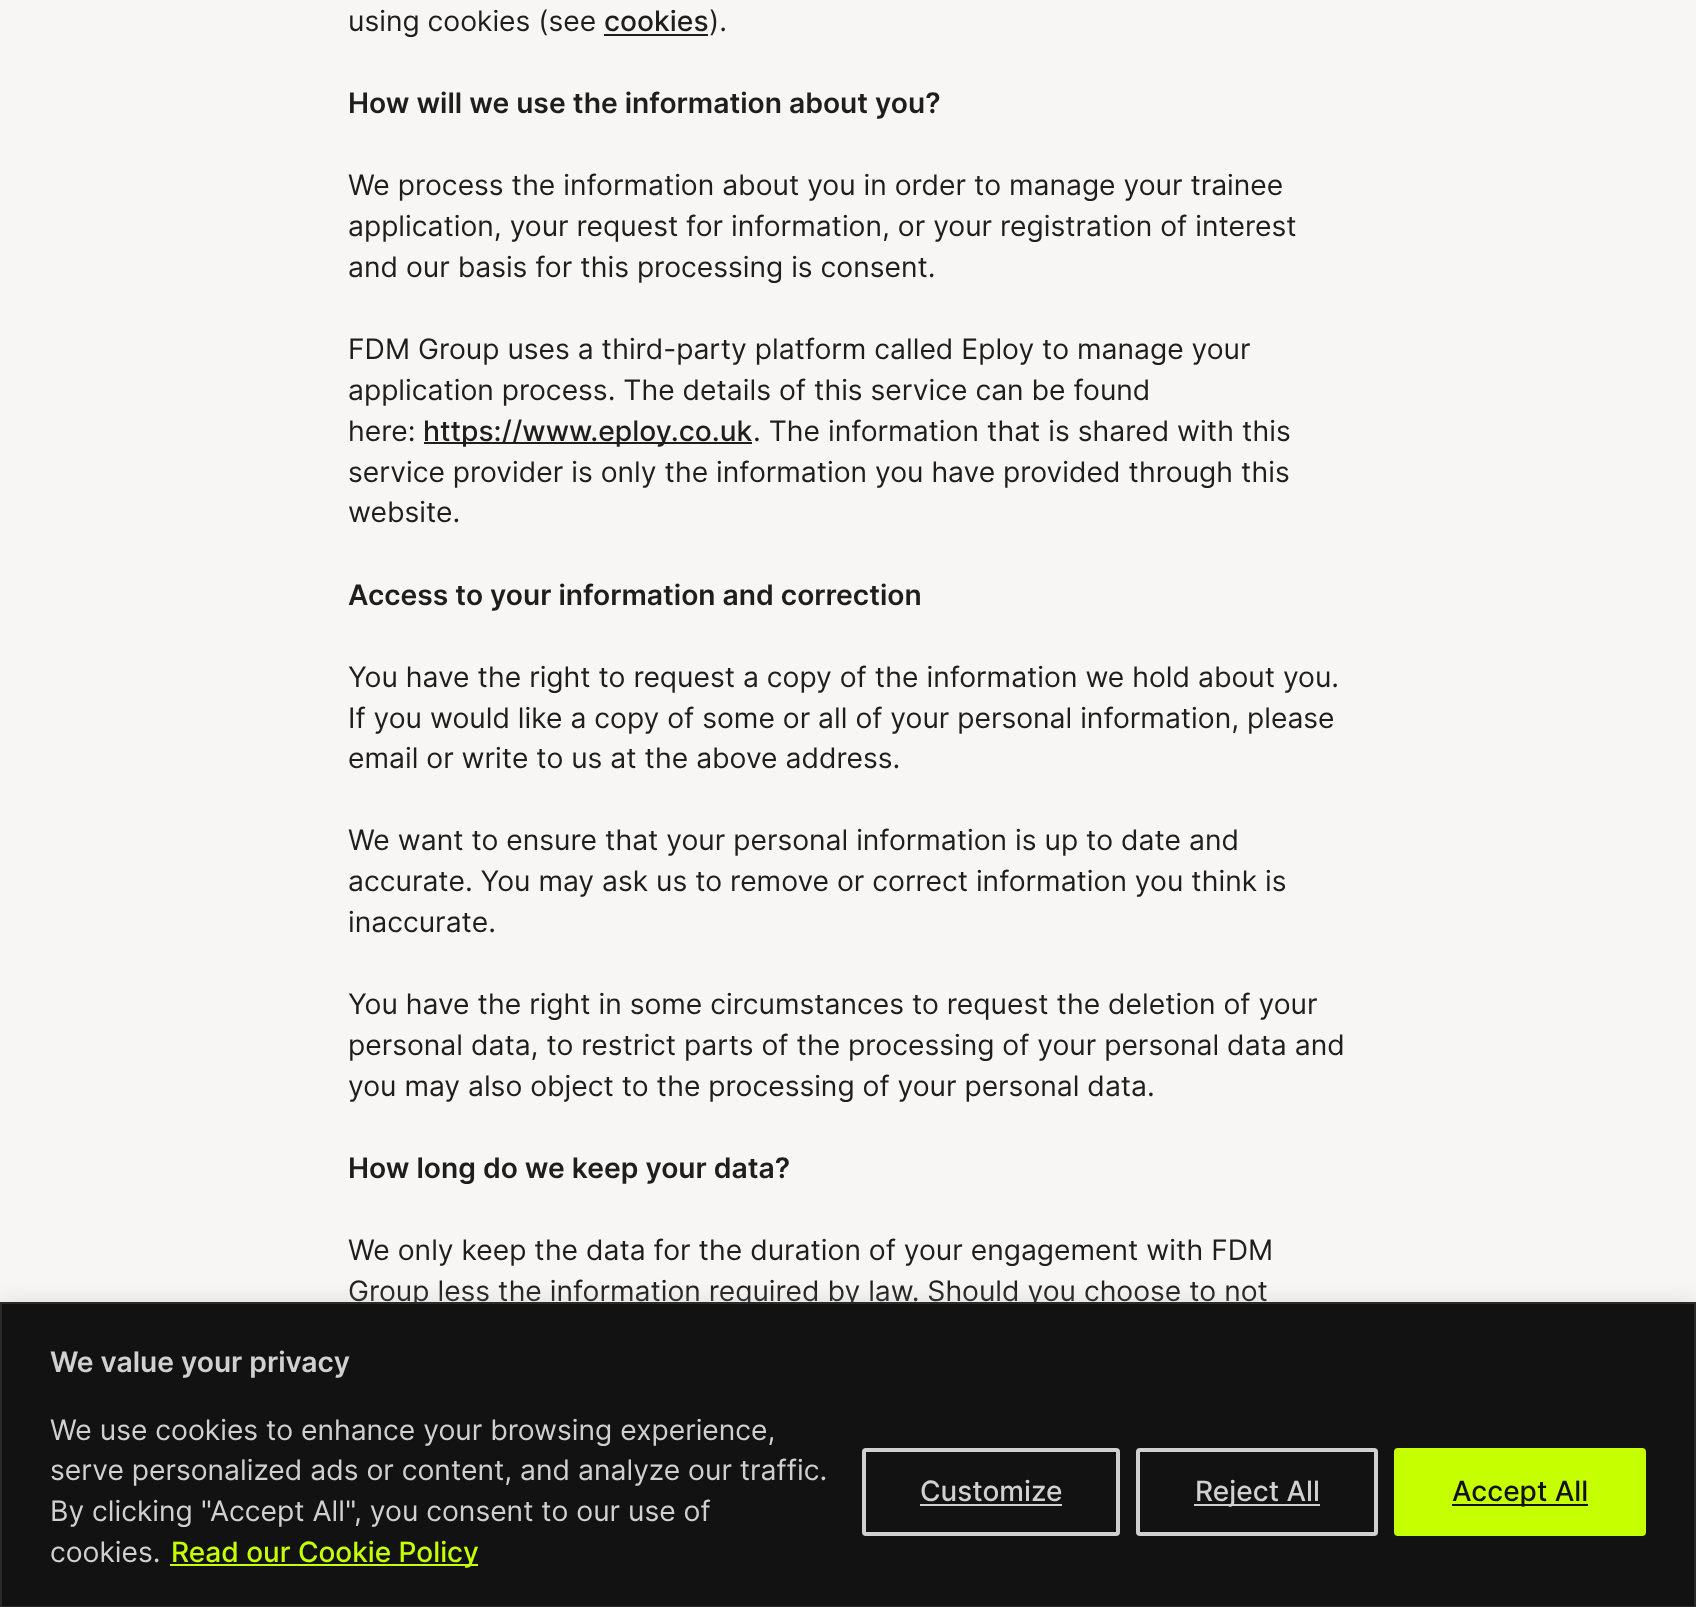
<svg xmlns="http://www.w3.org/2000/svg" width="1696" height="1607">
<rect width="100%" height="100%" fill="#f7f6f5"/>
<text x="348" y="31" style="font-family:Inter;font-size:28.25px;fill:#1e1e1e">using cookies (see</text>
<text x="604" y="31" style="font-family:Inter;font-size:28.25px;font-weight:500;fill:#1e1e1e">cookies</text>
<rect x="604" y="34" width="104" height="2" fill="#1e1e1e"/>
<text x="709" y="31" style="font-family:Inter;font-size:28.25px;fill:#1e1e1e">).</text>
<text x="348" y="113" style="font-family:Inter;font-size:28.25px;font-weight:600;fill:#1e1e1e">How will we use the information about you?</text>
<text x="348" y="195" style="font-family:Inter;font-size:28.25px;fill:#1e1e1e">We process the information about you in order to manage your trainee</text>
<text x="348" y="236" style="font-family:Inter;font-size:28.25px;fill:#1e1e1e">application, your request for information, or your registration of interest</text>
<text x="348" y="277" style="font-family:Inter;font-size:28.25px;fill:#1e1e1e">and our basis for this processing is consent.</text>
<text x="348" y="359" style="font-family:Inter;font-size:28.25px;fill:#1e1e1e">FDM Group uses a third-party platform called Eploy to manage your</text>
<text x="348" y="400" style="font-family:Inter;font-size:28.25px;fill:#1e1e1e">application process. The details of this service can be found</text>
<text x="348" y="441" style="font-family:Inter;font-size:28.25px;fill:#1e1e1e">here:</text>
<rect x="424" y="442" width="328" height="2" fill="#1e1e1e"/>
<text x="423" y="441" style="font-family:Inter;font-size:28.25px;font-weight:500;fill:#1e1e1e">https://www.eploy.co.uk</text>
<text x="753" y="441" style="font-family:Inter;font-size:28.25px;fill:#1e1e1e">. The information that is shared with this</text>
<text x="348" y="482" style="font-family:Inter;font-size:28.25px;fill:#1e1e1e">service provider is only the information you have provided through this</text>
<text x="348" y="522" style="font-family:Inter;font-size:28.25px;fill:#1e1e1e">website.</text>
<text x="348" y="605" style="font-family:Inter;font-size:28.25px;font-weight:600;fill:#1e1e1e">Access to your information and correction</text>
<text x="348" y="687" style="font-family:Inter;font-size:28.25px;fill:#1e1e1e">You have the right to request a copy of the information we hold about you.</text>
<text x="348" y="728" style="font-family:Inter;font-size:28.25px;fill:#1e1e1e">If you would like a copy of some or all of your personal information, please</text>
<text x="348" y="768" style="font-family:Inter;font-size:28.25px;fill:#1e1e1e">email or write to us at the above address.</text>
<text x="348" y="850" style="font-family:Inter;font-size:28.25px;fill:#1e1e1e">We want to ensure that your personal information is up to date and</text>
<text x="348" y="891" style="font-family:Inter;font-size:28.25px;fill:#1e1e1e">accurate. You may ask us to remove or correct information you think is</text>
<text x="348" y="932" style="font-family:Inter;font-size:28.25px;fill:#1e1e1e">inaccurate.</text>
<text x="348" y="1014" style="font-family:Inter;font-size:28.25px;fill:#1e1e1e">You have the right in some circumstances to request the deletion of your</text>
<text x="348" y="1055" style="font-family:Inter;font-size:28.25px;fill:#1e1e1e">personal data, to restrict parts of the processing of your personal data and</text>
<text x="348" y="1096" style="font-family:Inter;font-size:28.25px;fill:#1e1e1e">you may also object to the processing of your personal data.</text>
<text x="348" y="1178" style="font-family:Inter;font-size:28.25px;font-weight:600;fill:#1e1e1e">How long do we keep your data?</text>
<text x="348" y="1260" style="font-family:Inter;font-size:28.25px;fill:#1e1e1e">We only keep the data for the duration of your engagement with FDM</text>
<text x="348" y="1301" style="font-family:Inter;font-size:28.25px;fill:#1e1e1e">Group less the information required by law. Should you choose to not</text>
<rect y="1300" width="1696" height="306" fill="#acabab4d" filter="blur(10px)"/>
<rect x="1" y="1303" width="1694" height="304" fill="#121212" stroke="#2a2a2a" stroke-width="2"/>
<text x="50" y="1372" style="font-family:Inter;font-size:28.25px;font-weight:600;fill:#d0d0d0">We value your privacy</text>
<text x="50" y="1440" style="font-family:Inter;font-size:28.25px;fill:#d0d0d0">We use cookies to enhance your browsing experience,</text>
<text x="50" y="1480" style="font-family:Inter;font-size:28.25px;fill:#d0d0d0">serve personalized ads or content, and analyze our traffic.</text>
<text x="50" y="1521" style="font-family:Inter;font-size:28.25px;fill:#d0d0d0">By clicking "Accept All", you consent to our use of</text>
<text x="50" y="1562" style="font-family:Inter;font-size:28.25px;fill:#d0d0d0">cookies.</text>
<rect x="170" y="1564" width="308" height="2" fill="#c5ff00"/>
<text x="171" y="1562" style="font-family:Inter;font-size:28px;font-weight:500;fill:#c5ff00">Read our Cookie Policy</text>
<rect x="864" y="1450" width="254" height="84" rx="2" fill="none" stroke="#d0d0d0" stroke-width="4"/>
<text x="920" y="1501" style="font-family:Inter;font-size:28px;font-weight:500;fill:#d0d0d0">Customize</text>
<rect x="920" y="1504" width="142" height="2" fill="#d0d0d0"/>
<rect x="1138" y="1450" width="238" height="84" rx="2" fill="none" stroke="#d0d0d0" stroke-width="4"/>
<rect x="1194" y="1504" width="126" height="2" fill="#d0d0d0"/>
<text x="1195" y="1501" style="font-family:Inter;font-size:28px;font-weight:500;fill:#d0d0d0">Reject All</text>
<rect x="1396" y="1450" width="248" height="84" rx="2" fill="#c5ff00" stroke="#c5ff00" stroke-width="4"/>
<rect x="1452" y="1504" width="136" height="2" fill="#121212"/>
<text x="1452" y="1501" style="font-family:Inter;font-size:28px;font-weight:500;fill:#121212">Accept All</text>
</svg>
